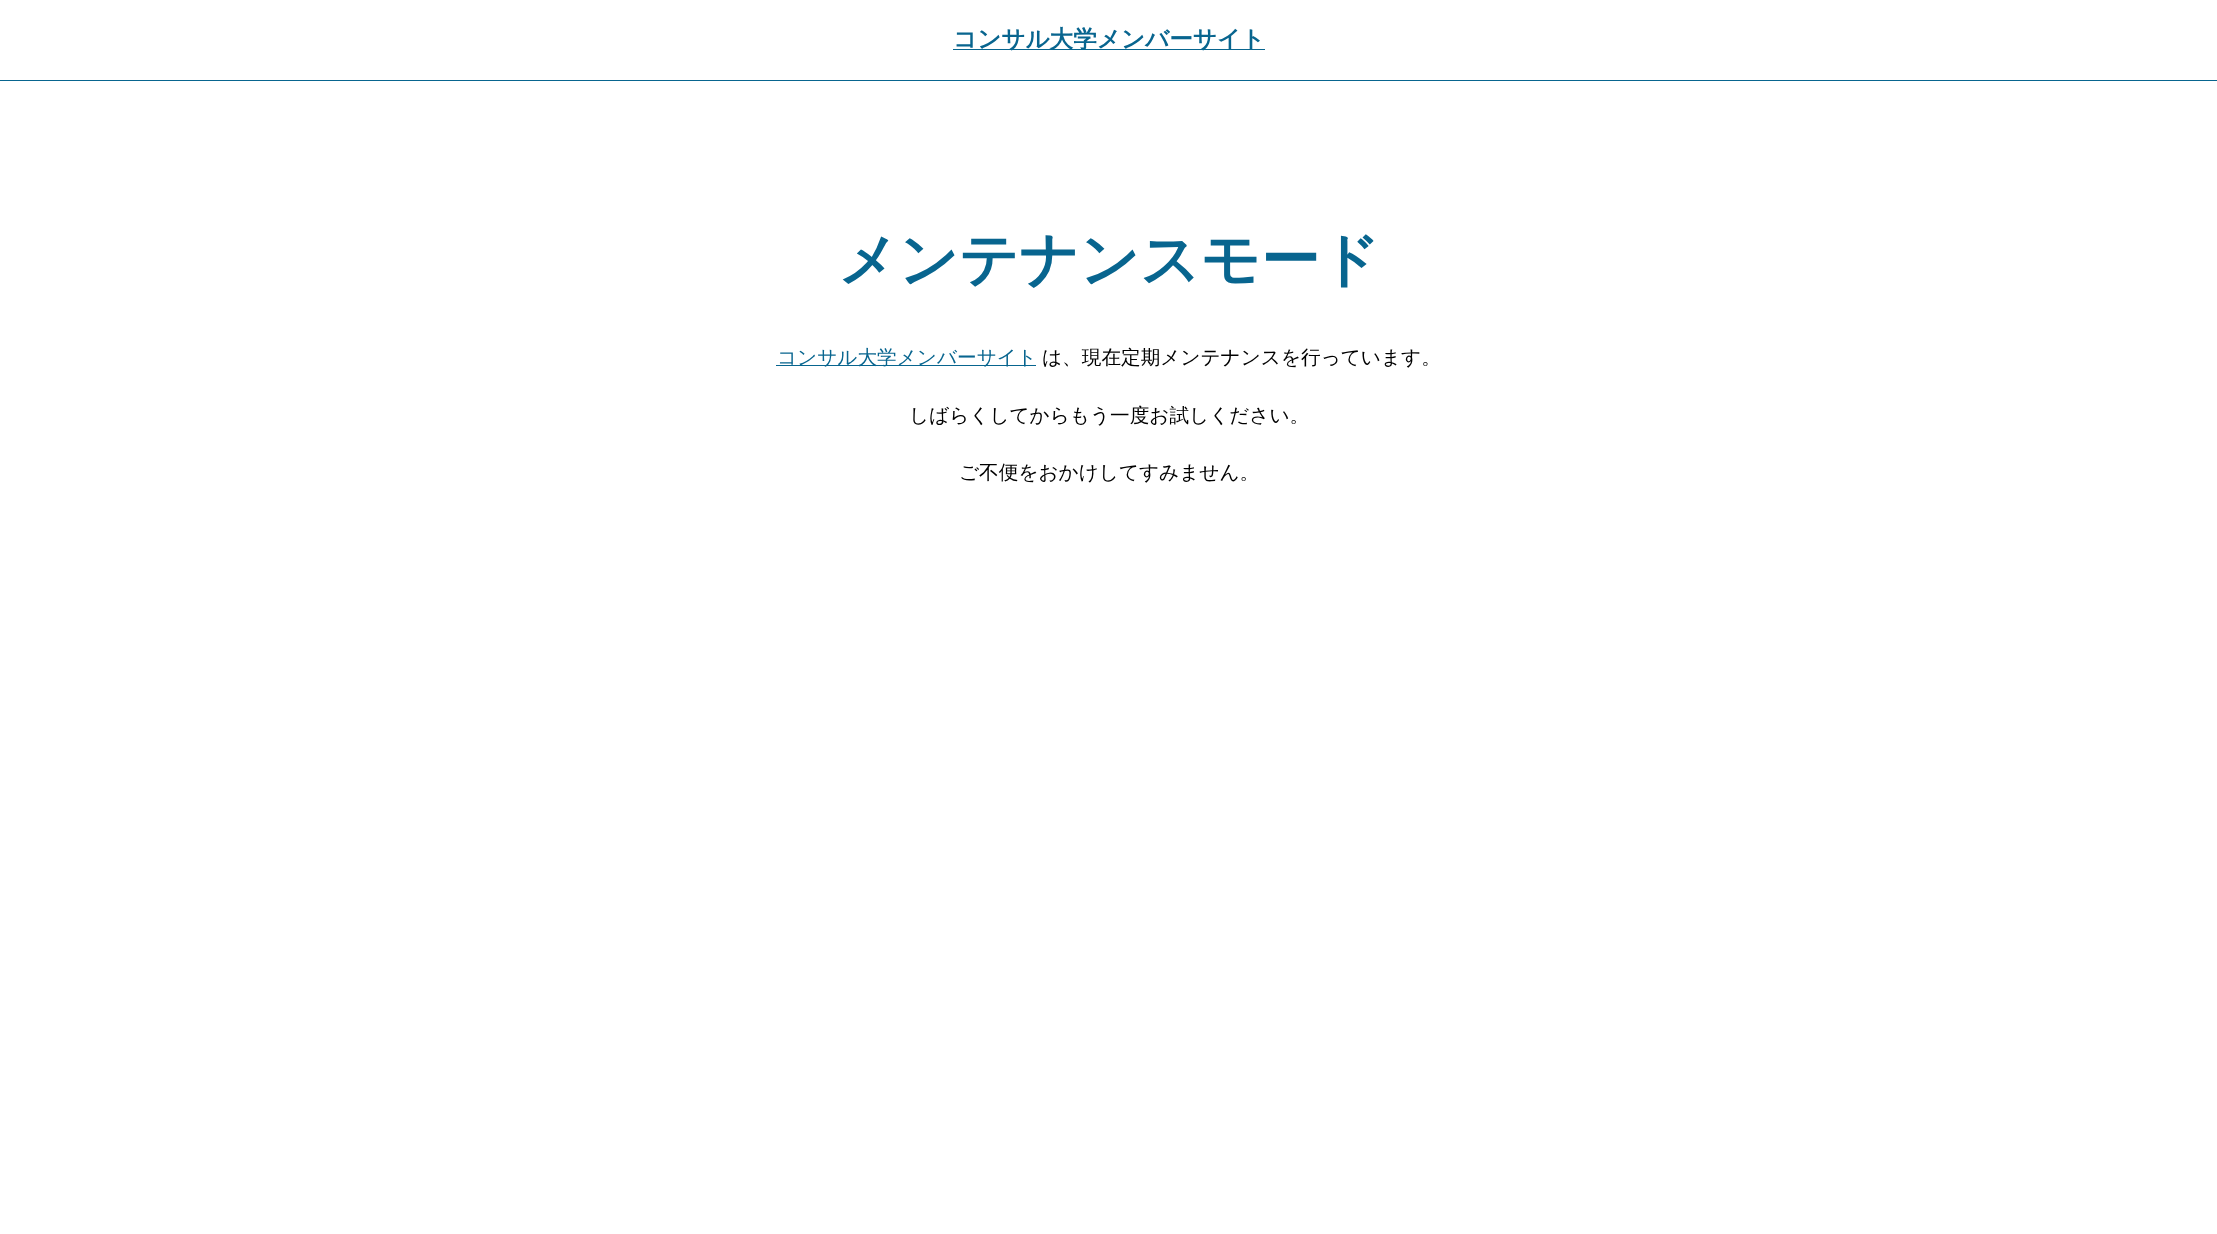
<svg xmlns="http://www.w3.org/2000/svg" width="2217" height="1234">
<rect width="100%" height="100%" fill="#fff"/>
<rect y="80" width="2217" height="1" fill="#08658f"/>
<rect x="953" y="49" width="312" height="1" fill="#08658f"/>
<text x="953" y="47" style="font-family:WenQuanYi Zen Hei;font-size:23.6px;font-weight:bold;fill:#08658f">コンサル大学メンバーサイト</text>
<text x="838" y="280" style="font-family:WenQuanYi Zen Hei;font-size:59px;font-weight:bold;fill:#08658f">メンテナンスモード</text>
<rect x="776" y="365" width="260" height="1" fill="#08658f"/>
<text x="777" y="364" style="font-family:WenQuanYi Zen Hei;font-size:19.65px;font-weight:500;fill:#08658f">コンサル大学メンバーサイト</text>
<text x="1042" y="364" style="font-family:WenQuanYi Zen Hei;font-size:19.65px;font-weight:500;fill:#000">は、現在定期メンテナンスを行っています。</text>
<text x="909" y="422" style="font-family:WenQuanYi Zen Hei;font-size:19.65px;font-weight:500;fill:#000">しばらくしてからもう一度お試しください。</text>
<text x="959" y="479" style="font-family:WenQuanYi Zen Hei;font-size:19.65px;font-weight:500;fill:#000">ご不便をおかけしてすみません。</text>
</svg>
